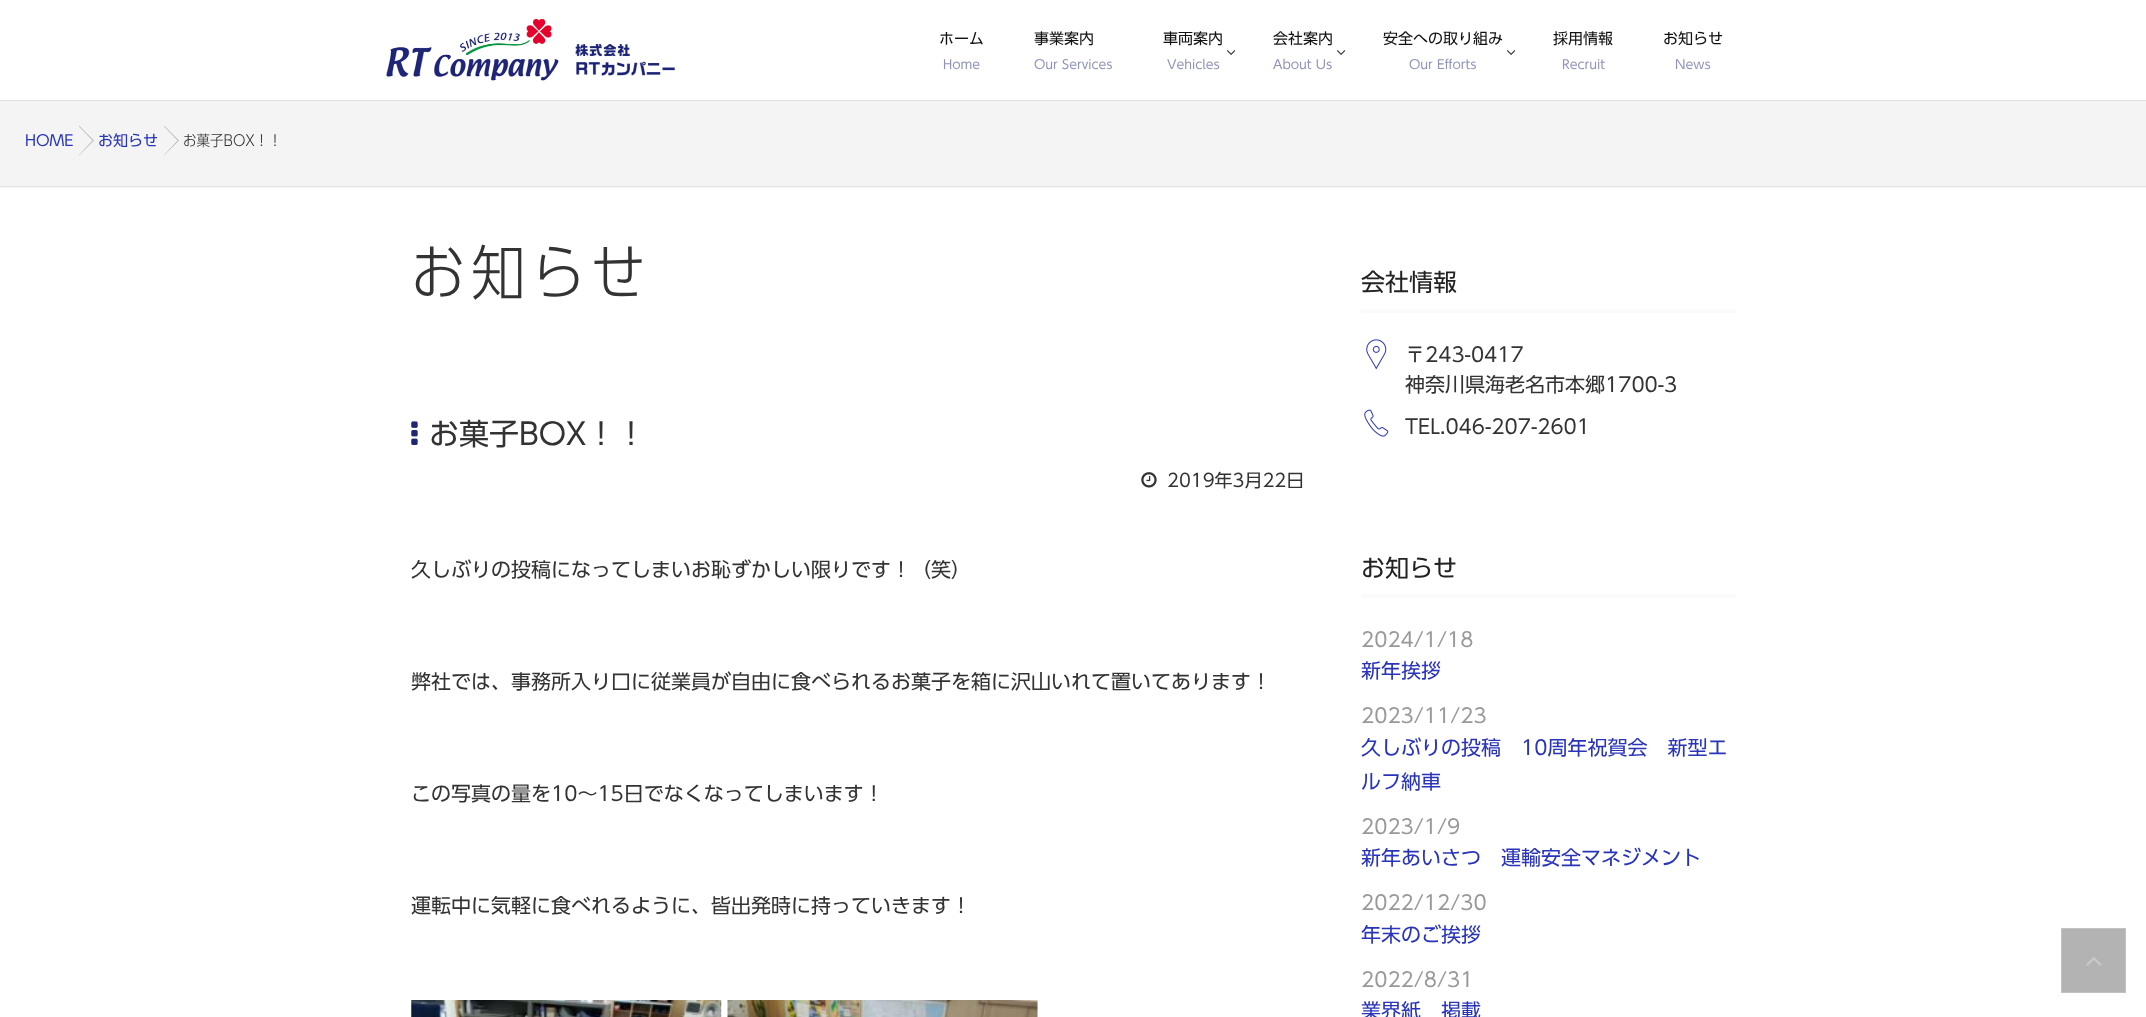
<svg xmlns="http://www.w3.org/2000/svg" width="2146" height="1017">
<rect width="100%" height="100%" fill="#fff"/>
<rect y="100" width="2146" height="1" fill="#dfdfdf"/>
<image x="386" y="19" width="290" height="62" href="media/1.png"/>
<text x="939" y="44" style="font-family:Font;font-size:15px;fill:#111">ホーム</text>
<text x="943" y="69" style="font-family:Font;font-size:12.5px;fill:#8f92bb">Home</text>
<text x="1034" y="44" style="font-family:Font;font-size:15px;fill:#111">事業案内</text>
<text x="1034" y="69" style="font-family:Font;font-size:12.5px;fill:#8f92bb">Our Services</text>
<text x="1163" y="44" style="font-family:Font;font-size:15px;fill:#111">車両案内</text>
<text x="1167" y="69" style="font-family:Font;font-size:12.5px;fill:#8f92bb">Vehicles</text>
<image x="1226" y="50" width="10" height="5" href="media/2.png"/>
<text x="1273" y="44" style="font-family:Font;font-size:15px;fill:#111">会社案内</text>
<text x="1273" y="69" style="font-family:Font;font-size:12.5px;fill:#8f92bb">About Us</text>
<image x="1336" y="50" width="10" height="5" href="media/2.png"/>
<text x="1383" y="44" style="font-family:Font;font-size:15px;fill:#111">安全への取り組み</text>
<text x="1409" y="69" style="font-family:Font;font-size:12.5px;fill:#8f92bb">Our Efforts</text>
<image x="1506" y="50" width="10" height="5" href="media/2.png"/>
<text x="1553" y="44" style="font-family:Font;font-size:15px;fill:#111">採用情報</text>
<text x="1562" y="69" style="font-family:Font;font-size:12.5px;fill:#8f92bb">Recruit</text>
<text x="1663" y="44" style="font-family:Font;font-size:15px;fill:#111">お知らせ</text>
<text x="1675" y="69" style="font-family:Font;font-size:12.5px;fill:#8f92bb">News</text>
<rect y="101" width="2146" height="87" fill="#f4f4f4"/>
<rect y="186" width="2146" height="1" fill="#e5e5e5"/>
<text x="25" y="146" style="font-family:Font;font-size:15px;fill:#2934b9">HOME</text>
<path d="M79 126.5l13.5 14l-13.5 14.5v.5l15-15l-15-15z" fill="#bcbcbc"/>
<text x="98" y="146" style="font-family:Font;font-size:15px;fill:#2934b9">お知らせ</text>
<path d="M164 126.5l13.5 14l-13.5 14.5v.5l15-15l-15-15z" fill="#bcbcbc"/>
<text x="183" y="146" style="font-family:Font;font-size:15px;font-weight:300;fill:#333">お菓子BOX！！</text>
<text x="411" y="295" style="font-family:Font;font-size:60px;font-weight:300;letter-spacing:6px;fill:#333">お知らせ</text>
<image x="411" y="421" width="7" height="24" href="media/3.png"/>
<text x="429" y="445" style="font-family:Font;font-size:30px;fill:#333">お菓子BOX！！</text>
<image x="1141" y="472" width="16" height="16" href="media/4.png"/>
<text x="1167" y="487" style="font-family:Font;font-size:18px;fill:#333">2019年3月22日</text>
<text x="411" y="577" style="font-family:Font;font-size:20px;fill:#333">久しぶりの投稿になってしまいお恥ずかしい限りです！（笑）</text>
<text x="411" y="689" style="font-family:Font;font-size:20px;fill:#333">弊社では、事務所入り口に従業員が自由に食べられるお菓子を箱に沢山いれて置いてあります！</text>
<text x="411" y="801" style="font-family:Font;font-size:20px;fill:#333">この写真の量を10～15日でなくなってしまいます！</text>
<text x="411" y="913" style="font-family:Font;font-size:20px;fill:#333">運転中に気軽に食べれるように、皆出発時に持っていきます！</text>
<image x="411" y="1000" width="311" height="17" href="media/5.png"/>
<image x="727" y="1000" width="311" height="17" href="media/6.png"/>
<rect x="1361" y="309" width="375" height="4" fill="#fafafa"/>
<text x="1361" y="291" style="font-family:Font;font-size:24px;fill:#222">会社情報</text>
<image x="1366" y="339" width="21" height="31" href="media/7.png"/>
<text x="1405" y="362" style="font-family:Font;font-size:20px;fill:#333">〒243-0417</text>
<text x="1405" y="392" style="font-family:Font;font-size:20px;fill:#333">神奈川県海老名市本郷1700-3</text>
<image x="1364" y="409" width="25" height="28" href="media/8.png"/>
<text x="1405" y="434" style="font-family:Font;font-size:20px;fill:#333">TEL.046-207-2601</text>
<rect x="1361" y="594" width="375" height="4" fill="#fafafa"/>
<text x="1361" y="577" style="font-family:Font;font-size:24px;fill:#222">お知らせ</text>
<text x="1361" y="647" style="font-family:Font;font-size:20px;fill:#999">2024/1/18</text>
<text x="1361" y="678" style="font-family:Font;font-size:20px;fill:#2934b9">新年挨拶</text>
<text x="1361" y="723" style="font-family:Font;font-size:20px;fill:#999">2023/11/23</text>
<text x="1361" y="755" style="font-family:Font;font-size:20px;fill:#2934b9">久しぶりの投稿　10周年祝賀会　新型エ</text>
<text x="1361" y="789" style="font-family:Font;font-size:20px;fill:#2934b9">ルフ納車</text>
<text x="1361" y="834" style="font-family:Font;font-size:20px;fill:#999">2023/1/9</text>
<text x="1361" y="865" style="font-family:Font;font-size:20px;fill:#2934b9">新年あいさつ　運輸安全マネジメント</text>
<text x="1361" y="910" style="font-family:Font;font-size:20px;fill:#999">2022/12/30</text>
<text x="1361" y="942" style="font-family:Font;font-size:20px;fill:#2934b9">年末のご挨拶</text>
<text x="1361" y="987" style="font-family:Font;font-size:20px;fill:#999">2022/8/31</text>
<text x="1361" y="1018" style="font-family:Font;font-size:20px;fill:#2934b9">業界紙　掲載</text>
<rect x="2061.5" y="928.5" width="64" height="64" fill="#b3b3b3" stroke="#c2c2c2"/>
<image x="2086" y="957" width="16" height="9" href="media/9.png"/>
</svg>
